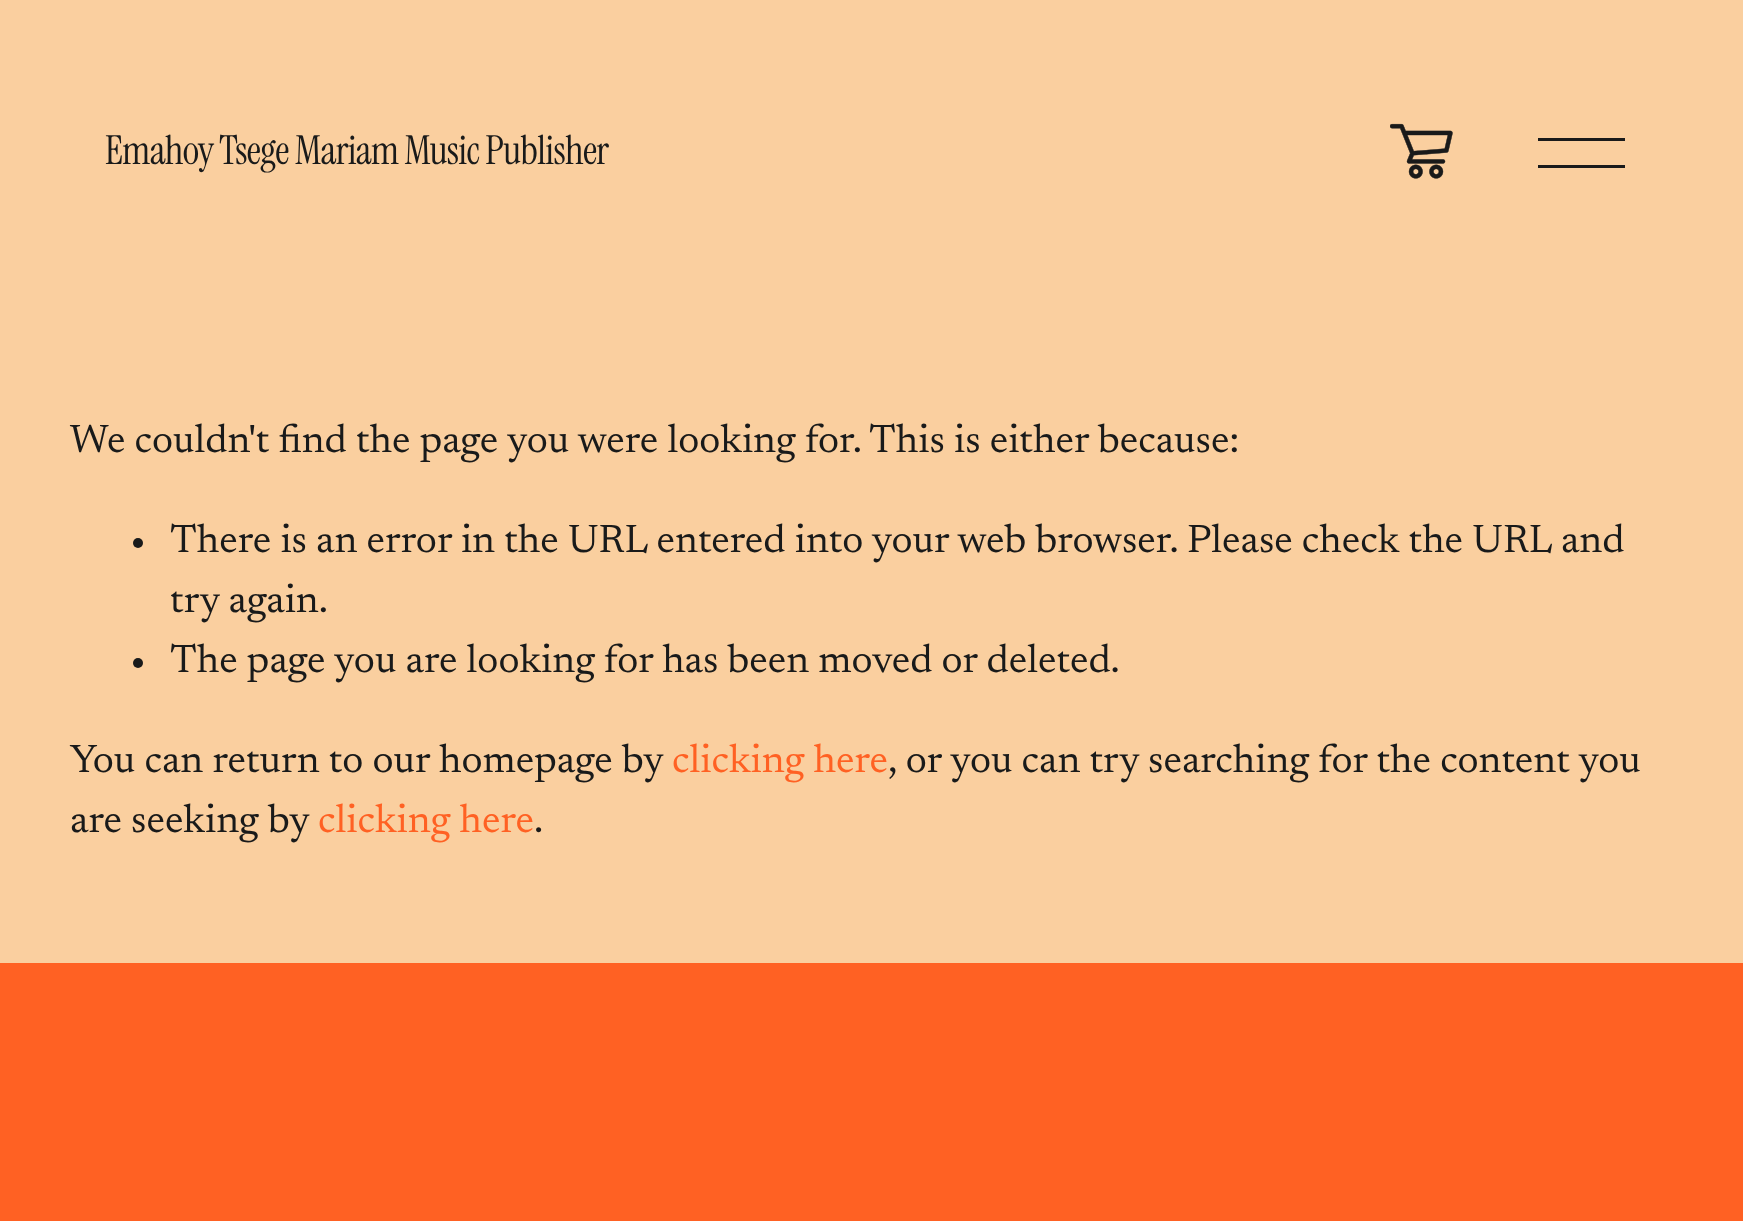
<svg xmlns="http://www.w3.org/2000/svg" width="1743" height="1221">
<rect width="100%" height="100%" fill="#facf9f"/>
<text x="105" y="164" style="font-family:Instrument Serif;font-size:40px;letter-spacing:-0.8px;fill:#191a1a">Emahoy Tsege Mariam Music Publisher</text>
<image x="1390" y="123" width="63" height="56" href="media/1.png"/>
<rect x="1538" y="138" width="87" height="3" fill="#191a1a"/>
<rect x="1538" y="165" width="87" height="3" fill="#191a1a"/>
<text x="70" y="452" style="font-family:Newsreader;font-size:40px;fill:#191a1a">We couldn't find the page you were looking for. This is either because:</text>
<circle cx="138" cy="543" r="5" fill="#191a1a"/>
<text x="170" y="552" style="font-family:Newsreader;font-size:40px;fill:#191a1a">There is an error in the URL entered into your web browser. Please check the URL and</text>
<text x="170" y="612" style="font-family:Newsreader;font-size:40px;fill:#191a1a">try again.</text>
<circle cx="138" cy="663" r="5" fill="#191a1a"/>
<text x="170" y="672" style="font-family:Newsreader;font-size:40px;fill:#191a1a">The page you are looking for has been moved or deleted.</text>
<text x="70" y="772" style="font-family:Newsreader;font-size:40px;fill:#191a1a">You can return to our homepage by</text>
<text x="672" y="772" style="font-family:Newsreader;font-size:40px;fill:#ff6123">clicking here</text>
<text x="888" y="772" style="font-family:Newsreader;font-size:40px;fill:#191a1a">, or you can try searching for the content you</text>
<text x="70" y="832" style="font-family:Newsreader;font-size:40px;fill:#191a1a">are seeking by</text>
<text x="318" y="832" style="font-family:Newsreader;font-size:40px;fill:#ff6123">clicking here</text>
<text x="534" y="832" style="font-family:Newsreader;font-size:40px;fill:#191a1a">.</text>
<rect y="963" width="1743" height="258" fill="#ff6123"/>
</svg>
